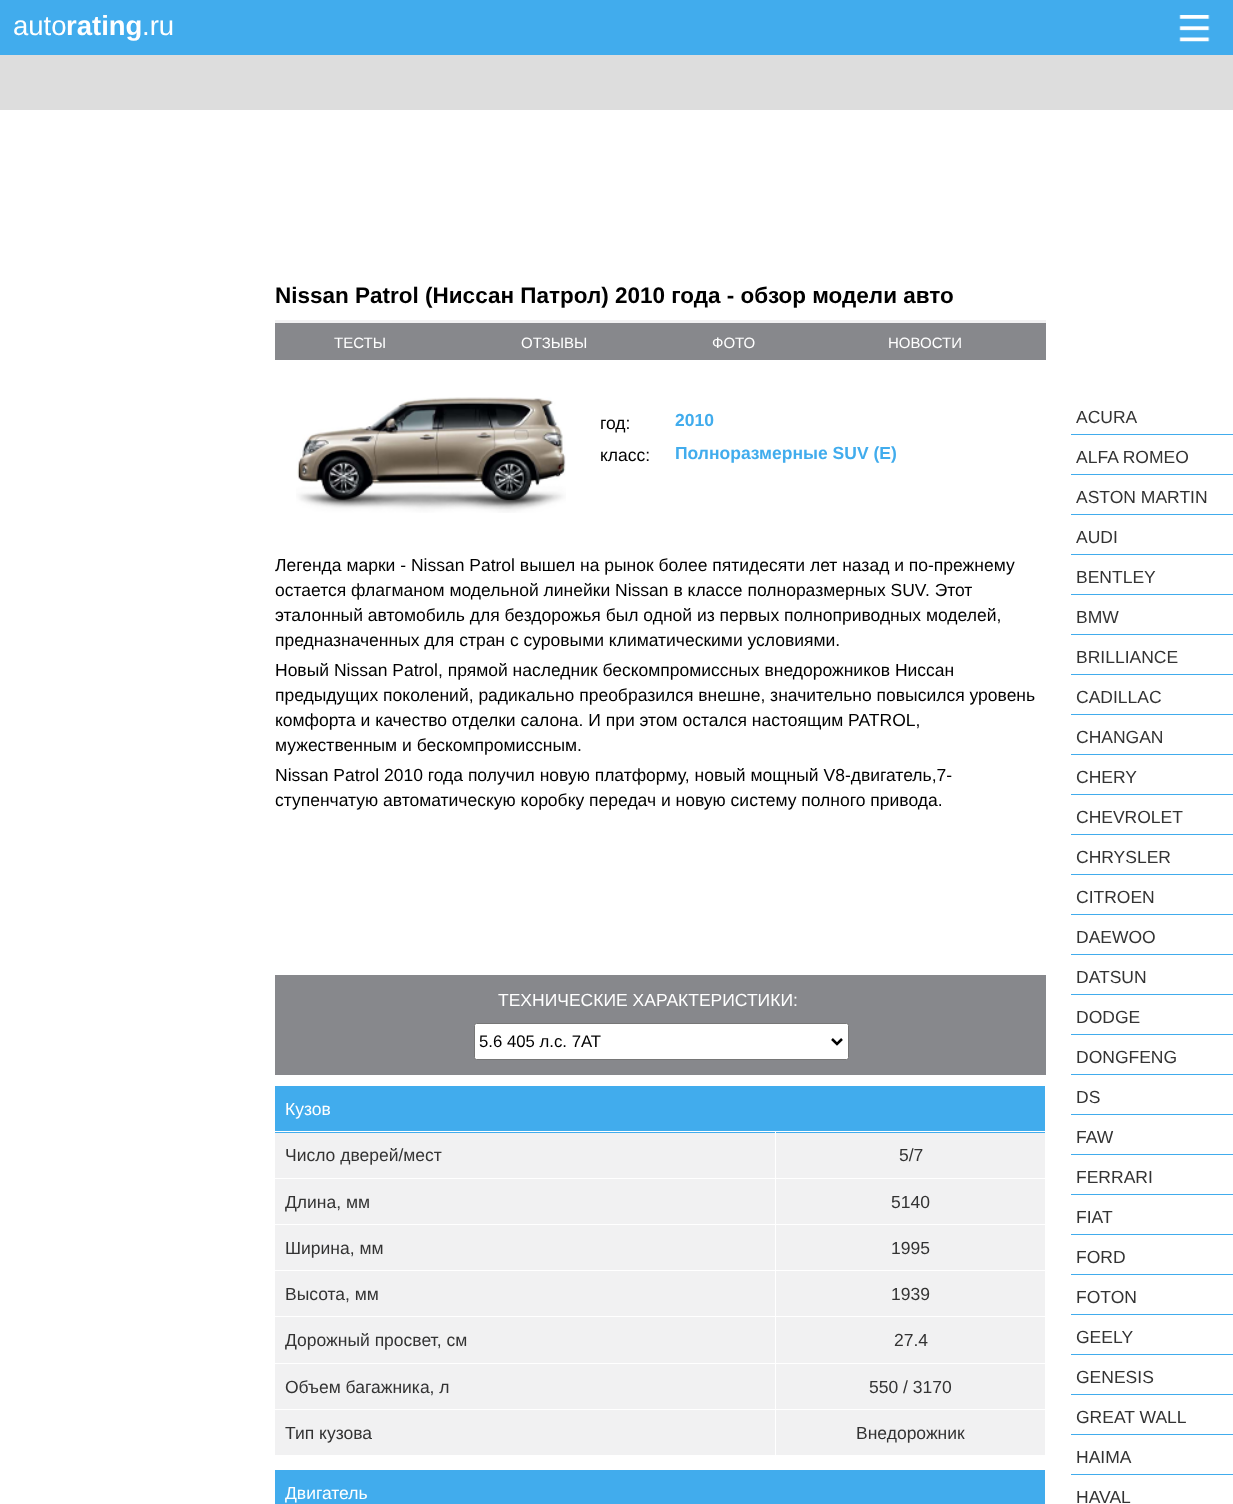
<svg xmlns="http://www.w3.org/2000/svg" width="1233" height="1504">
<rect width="100%" height="100%" fill="#fff"/>
<rect width="1233" height="55" fill="#41aced"/>
<text x="13" y="35" style="font-family:Liberation Sans;font-size:27.5px;fill:#fff">auto</text>
<text x="66" y="35" style="font-family:Liberation Sans;font-size:27.5px;font-weight:bold;fill:#fff">rating</text>
<text x="142" y="35" style="font-family:Liberation Sans;font-size:27.5px;fill:#fff">.ru</text>
<image x="1179" y="15" width="31" height="27" href="media/1.png"/>
<rect y="55" width="1233" height="55" fill="#ddd"/>
<text x="275" y="303" style="font-family:Liberation Sans;font-size:22.5px;font-weight:bold;fill:#000">Nissan Patrol (Ниссан Патрол) 2010 года - обзор модели авто</text>
<rect x="275" y="323" width="771" height="37" fill="#87888c"/>
<rect x="275" y="320" width="771" height="3" fill="#f1f1f2"/>
<text x="334" y="348" style="font-family:Liberation Sans;font-size:15px;fill:#fff">ТЕСТЫ</text>
<text x="521" y="348" style="font-family:Liberation Sans;font-size:15px;fill:#fff">ОТЗЫВЫ</text>
<text x="712" y="348" style="font-family:Liberation Sans;font-size:15px;fill:#fff">ФОТО</text>
<text x="888" y="348" style="font-family:Liberation Sans;font-size:15px;fill:#fff">НОВОСТИ</text>
<image x="296" y="397" width="270" height="116" href="media/2.png"/>
<text x="600" y="429" style="font-family:Liberation Sans;font-size:17.5px;fill:#000">год:</text>
<text x="675" y="426" style="font-family:Liberation Sans;font-size:17.5px;font-weight:bold;fill:#41aced">2010</text>
<text x="600" y="461" style="font-family:Liberation Sans;font-size:17.5px;fill:#000">класс:</text>
<text x="675" y="459" style="font-family:Liberation Sans;font-size:17.5px;font-weight:bold;fill:#41aced">Полноразмерные SUV (E)</text>
<text x="275" y="571" style="font-family:Liberation Sans;font-size:17.5px;fill:#000">Легенда марки - Nissan Patrol вышел на рынок более пятидесяти лет назад и по-прежнему</text>
<text x="275" y="596" style="font-family:Liberation Sans;font-size:17.5px;fill:#000">остается флагманом модельной линейки Nissan в классе полноразмерных SUV. Этот</text>
<text x="275" y="621" style="font-family:Liberation Sans;font-size:17.5px;fill:#000">эталонный автомобиль для бездорожья был одной из первых полноприводных моделей,</text>
<text x="275" y="646" style="font-family:Liberation Sans;font-size:17.5px;fill:#000">предназначенных для стран с суровыми климатическими условиями.</text>
<text x="275" y="676" style="font-family:Liberation Sans;font-size:17.5px;fill:#000">Новый Nissan Patrol, прямой наследник бескомпромиссных внедорожников Ниссан</text>
<text x="275" y="701" style="font-family:Liberation Sans;font-size:17.5px;fill:#000">предыдущих поколений, радикально преобразился внешне, значительно повысился уровень</text>
<text x="275" y="726" style="font-family:Liberation Sans;font-size:17.5px;fill:#000">комфорта и качество отделки салона. И при этом остался настоящим PATROL,</text>
<text x="275" y="751" style="font-family:Liberation Sans;font-size:17.5px;fill:#000">мужественным и бескомпромиссным.</text>
<text x="275" y="781" style="font-family:Liberation Sans;font-size:17.5px;fill:#000">Nissan Patrol 2010 года получил новую платформу, новый мощный V8-двигатель,7-</text>
<text x="275" y="806" style="font-family:Liberation Sans;font-size:17.5px;fill:#000">ступенчатую автоматическую коробку передач и новую систему полного привода.</text>
<rect x="275" y="975" width="771" height="100" fill="#87888c"/>
<text x="498" y="1006" style="font-family:Liberation Sans;font-size:17.5px;fill:#fff">ТЕХНИЧЕСКИЕ ХАРАКТЕРИСТИКИ:</text>
<rect x="474.5" y="1023.5" width="374" height="36" rx="2" fill="#fff" stroke="#767676"/>
<path d="M832 1039l5 5l5-5" fill="none" stroke="#000" stroke-width="2.5"/>
<text x="479" y="1047" style="font-family:Liberation Sans;font-size:16.75px;fill:#000">5.6 405 л.с. 7АТ</text>
<rect x="275" y="1086" width="770" height="47" fill="#41aced"/>
<text x="285" y="1115" style="font-family:Liberation Sans;font-size:17.5px;fill:#fff">Кузов</text>
<rect x="275" y="1133" width="500" height="45" fill="#f1f1f2"/>
<rect x="275" y="1131" width="771" height="1" fill="#fff"/>
<rect x="775" y="1131" width="1" height="2" fill="#fff"/>
<text x="285" y="1161" style="font-family:Liberation Sans;font-size:17.5px;fill:#333">Число дверей/мест</text>
<rect x="776" y="1133" width="269" height="45" fill="#f1f1f2"/>
<text x="899" y="1161" style="font-family:Liberation Sans;font-size:17.5px;fill:#333">5/7</text>
<rect x="275" y="1179" width="500" height="45" fill="#f1f1f2"/>
<text x="285" y="1208" style="font-family:Liberation Sans;font-size:17.5px;fill:#333">Длина, мм</text>
<rect x="776" y="1179" width="269" height="45" fill="#f1f1f2"/>
<text x="891" y="1208" style="font-family:Liberation Sans;font-size:17.5px;fill:#333">5140</text>
<rect x="275" y="1225" width="500" height="45" fill="#f1f1f2"/>
<text x="285" y="1254" style="font-family:Liberation Sans;font-size:17.5px;fill:#333">Ширина, мм</text>
<rect x="776" y="1225" width="269" height="45" fill="#f1f1f2"/>
<text x="891" y="1254" style="font-family:Liberation Sans;font-size:17.5px;fill:#333">1995</text>
<rect x="275" y="1271" width="500" height="92" fill="#f1f1f2"/>
<text x="285" y="1300" style="font-family:Liberation Sans;font-size:17.5px;fill:#333">Высота, мм</text>
<rect x="776" y="1271" width="269" height="92" fill="#f1f1f2"/>
<text x="891" y="1300" style="font-family:Liberation Sans;font-size:17.5px;fill:#333">1939</text>
<text x="285" y="1346" style="font-family:Liberation Sans;font-size:17.5px;fill:#333">Дорожный просвет, см</text>
<rect x="275" y="1316" width="771" height="1" fill="#fff"/>
<text x="894" y="1346" style="font-family:Liberation Sans;font-size:17.5px;fill:#333">27.4</text>
<rect x="275" y="1364" width="500" height="45" fill="#f1f1f2"/>
<text x="285" y="1393" style="font-family:Liberation Sans;font-size:17.5px;fill:#333">Объем багажника, л</text>
<rect x="776" y="1364" width="269" height="45" fill="#f1f1f2"/>
<text x="869" y="1393" style="font-family:Liberation Sans;font-size:17.5px;fill:#333">550 / 3170</text>
<rect x="275" y="1410" width="500" height="45" fill="#f1f1f2"/>
<text x="285" y="1439" style="font-family:Liberation Sans;font-size:17.5px;fill:#333">Тип кузова</text>
<rect x="776" y="1410" width="269" height="45" fill="#f1f1f2"/>
<text x="856" y="1439" style="font-family:Liberation Sans;font-size:17.5px;fill:#333">Внедорожник</text>
<rect x="275" y="1470" width="770" height="34" fill="#41aced"/>
<text x="285" y="1499" style="font-family:Liberation Sans;font-size:17.5px;fill:#fff">Двигатель</text>
<rect x="1071" y="434" width="162" height="1" fill="#41aced"/>
<text x="1076" y="423" style="font-family:Liberation Sans;font-size:17.5px;fill:#333">ACURA</text>
<rect x="1071" y="474" width="162" height="1" fill="#41aced"/>
<text x="1076" y="463" style="font-family:Liberation Sans;font-size:17.5px;fill:#333">ALFA ROMEO</text>
<rect x="1071" y="514" width="162" height="1" fill="#41aced"/>
<text x="1076" y="503" style="font-family:Liberation Sans;font-size:17.5px;fill:#333">ASTON MARTIN</text>
<rect x="1071" y="554" width="162" height="1" fill="#41aced"/>
<text x="1076" y="543" style="font-family:Liberation Sans;font-size:17.5px;fill:#333">AUDI</text>
<rect x="1071" y="594" width="162" height="1" fill="#41aced"/>
<text x="1076" y="583" style="font-family:Liberation Sans;font-size:17.5px;fill:#333">BENTLEY</text>
<rect x="1071" y="634" width="162" height="1" fill="#41aced"/>
<text x="1076" y="623" style="font-family:Liberation Sans;font-size:17.5px;fill:#333">BMW</text>
<rect x="1071" y="674" width="162" height="1" fill="#41aced"/>
<text x="1076" y="663" style="font-family:Liberation Sans;font-size:17.5px;fill:#333">BRILLIANCE</text>
<rect x="1071" y="714" width="162" height="1" fill="#41aced"/>
<text x="1076" y="703" style="font-family:Liberation Sans;font-size:17.5px;fill:#333">CADILLAC</text>
<rect x="1071" y="754" width="162" height="1" fill="#41aced"/>
<text x="1076" y="743" style="font-family:Liberation Sans;font-size:17.5px;fill:#333">CHANGAN</text>
<rect x="1071" y="794" width="162" height="1" fill="#41aced"/>
<text x="1076" y="783" style="font-family:Liberation Sans;font-size:17.5px;fill:#333">CHERY</text>
<rect x="1071" y="834" width="162" height="1" fill="#41aced"/>
<text x="1076" y="823" style="font-family:Liberation Sans;font-size:17.5px;fill:#333">CHEVROLET</text>
<rect x="1071" y="874" width="162" height="1" fill="#41aced"/>
<text x="1076" y="863" style="font-family:Liberation Sans;font-size:17.5px;fill:#333">CHRYSLER</text>
<rect x="1071" y="914" width="162" height="1" fill="#41aced"/>
<text x="1076" y="903" style="font-family:Liberation Sans;font-size:17.5px;fill:#333">CITROEN</text>
<rect x="1071" y="954" width="162" height="1" fill="#41aced"/>
<text x="1076" y="943" style="font-family:Liberation Sans;font-size:17.5px;fill:#333">DAEWOO</text>
<rect x="1071" y="994" width="162" height="1" fill="#41aced"/>
<text x="1076" y="983" style="font-family:Liberation Sans;font-size:17.5px;fill:#333">DATSUN</text>
<rect x="1071" y="1034" width="162" height="1" fill="#41aced"/>
<text x="1076" y="1023" style="font-family:Liberation Sans;font-size:17.5px;fill:#333">DODGE</text>
<rect x="1071" y="1074" width="162" height="1" fill="#41aced"/>
<text x="1076" y="1063" style="font-family:Liberation Sans;font-size:17.5px;fill:#333">DONGFENG</text>
<rect x="1071" y="1114" width="162" height="1" fill="#41aced"/>
<text x="1076" y="1103" style="font-family:Liberation Sans;font-size:17.5px;fill:#333">DS</text>
<rect x="1071" y="1154" width="162" height="1" fill="#41aced"/>
<text x="1076" y="1143" style="font-family:Liberation Sans;font-size:17.5px;fill:#333">FAW</text>
<rect x="1071" y="1194" width="162" height="1" fill="#41aced"/>
<text x="1076" y="1183" style="font-family:Liberation Sans;font-size:17.5px;fill:#333">FERRARI</text>
<rect x="1071" y="1234" width="162" height="1" fill="#41aced"/>
<text x="1076" y="1223" style="font-family:Liberation Sans;font-size:17.5px;fill:#333">FIAT</text>
<rect x="1071" y="1274" width="162" height="1" fill="#41aced"/>
<text x="1076" y="1263" style="font-family:Liberation Sans;font-size:17.5px;fill:#333">FORD</text>
<rect x="1071" y="1314" width="162" height="1" fill="#41aced"/>
<text x="1076" y="1303" style="font-family:Liberation Sans;font-size:17.5px;fill:#333">FOTON</text>
<rect x="1071" y="1354" width="162" height="1" fill="#41aced"/>
<text x="1076" y="1343" style="font-family:Liberation Sans;font-size:17.5px;fill:#333">GEELY</text>
<rect x="1071" y="1394" width="162" height="1" fill="#41aced"/>
<text x="1076" y="1383" style="font-family:Liberation Sans;font-size:17.5px;fill:#333">GENESIS</text>
<rect x="1071" y="1434" width="162" height="1" fill="#41aced"/>
<text x="1076" y="1423" style="font-family:Liberation Sans;font-size:17.5px;fill:#333">GREAT WALL</text>
<rect x="1071" y="1474" width="162" height="1" fill="#41aced"/>
<text x="1076" y="1463" style="font-family:Liberation Sans;font-size:17.5px;fill:#333">HAIMA</text>
<text x="1076" y="1503" style="font-family:Liberation Sans;font-size:17.5px;fill:#333">HAVAL</text>
</svg>
